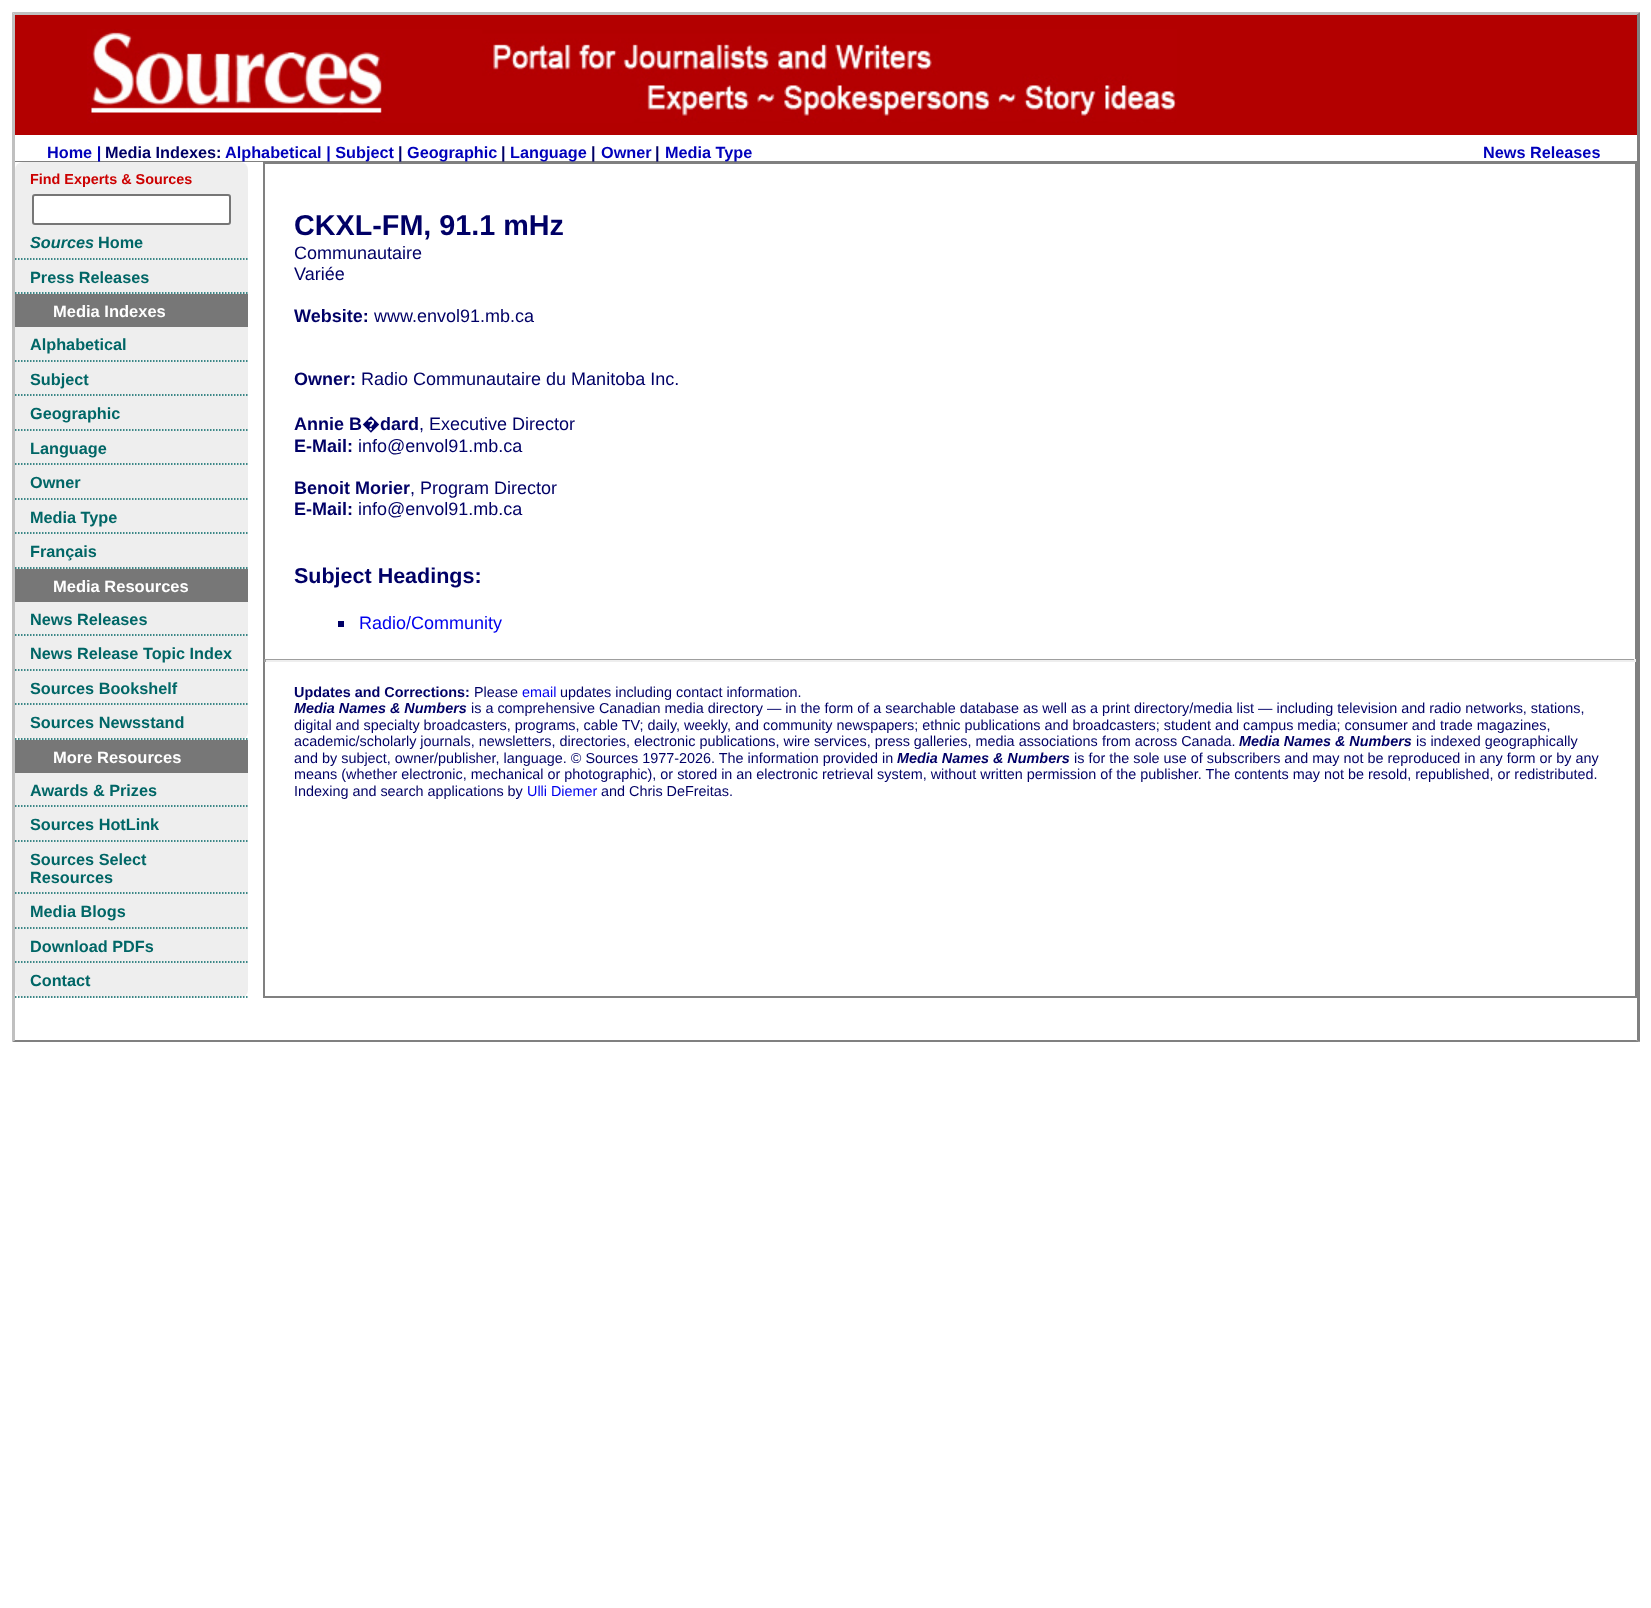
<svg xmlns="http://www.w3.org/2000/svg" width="1651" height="1608">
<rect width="100%" height="100%" fill="#fff"/>
<path d="M12 12h1628l-4 3h-1621z" fill="#c0c0c0"/>
<path d="M1640 12v1030l-4-2v-1025z" fill="#808080"/>
<path d="M1640 1042h-1628l3-2h1621z" fill="#808080"/>
<path d="M12 1042v-1030l3 3v1025z" fill="#c0c0c0"/>
<rect x="15" y="15" width="1622" height="120" fill="#b30000"/>
<image x="87" y="29" width="1090" height="94" href="media/1.png"/>
<rect x="1636" y="135" width="1" height="26" fill="#fff"/>
<rect x="15" y="161" width="1622" height="1" fill="#808080"/>
<text x="47" y="158" style="font-family:Liberation Sans;font-size:16.25px;font-weight:bold;fill:#00b">Home |</text>
<text x="105" y="158" style="font-family:Liberation Sans;font-size:16.25px;font-weight:bold;fill:#006">Media Indexes:</text>
<text x="225" y="158" style="font-family:Liberation Sans;font-size:16.25px;font-weight:bold;fill:#00b">Alphabetical | Subject</text>
<text x="398" y="158" style="font-family:Liberation Sans;font-size:16.25px;font-weight:bold;fill:#006">|</text>
<text x="407" y="158" style="font-family:Liberation Sans;font-size:16.25px;font-weight:bold;fill:#00b">Geographic</text>
<text x="501" y="158" style="font-family:Liberation Sans;font-size:16.25px;font-weight:bold;fill:#006">|</text>
<text x="510" y="158" style="font-family:Liberation Sans;font-size:16.25px;font-weight:bold;fill:#00b">Language</text>
<text x="591" y="158" style="font-family:Liberation Sans;font-size:16.25px;font-weight:bold;fill:#006">|</text>
<text x="601" y="158" style="font-family:Liberation Sans;font-size:16.25px;font-weight:bold;fill:#00b">Owner</text>
<text x="655" y="158" style="font-family:Liberation Sans;font-size:16.25px;font-weight:bold;fill:#006">|</text>
<text x="665" y="158" style="font-family:Liberation Sans;font-size:16.25px;font-weight:bold;fill:#00b">Media Type</text>
<text x="1483" y="158" style="font-family:Liberation Sans;font-size:16.25px;font-weight:bold;fill:#00b">News Releases</text>
<rect x="15" y="162" width="233" height="578" rx="8" fill="#eee"/>
<text x="30" y="184" style="font-family:Liberation Sans;font-size:14.4px;font-weight:bold;fill:#c00">Find Experts &amp; Sources</text>
<rect x="33" y="195" width="197" height="29" rx="2" fill="#fff" stroke="#767676" stroke-width="2"/>
<path d="M15 259h232.5" fill="none" stroke="#066" stroke-width="1.5" stroke-dasharray="1.5 1.5"/>
<text x="30" y="248" style="font-family:Liberation Sans;font-size:16.25px;font-weight:bold;font-style:italic;fill:#066">Sources</text>
<text x="98" y="248" style="font-family:Liberation Sans;font-size:16.25px;font-weight:bold;fill:#066">Home</text>
<path d="M15 293h232.5" fill="none" stroke="#066" stroke-width="1.5" stroke-dasharray="1.5 1.5"/>
<text x="30" y="283" style="font-family:Liberation Sans;font-size:16.25px;font-weight:bold;fill:#066">Press Releases</text>
<rect x="15" y="294" width="233" height="33" fill="#777"/>
<text x="53" y="317" style="font-family:Liberation Sans;font-size:16.5px;font-weight:bold;fill:#fff">Media Indexes</text>
<path d="M15 361h232.5" fill="none" stroke="#066" stroke-width="1.5" stroke-dasharray="1.5 1.5"/>
<text x="30" y="350" style="font-family:Liberation Sans;font-size:16.25px;font-weight:bold;fill:#066">Alphabetical</text>
<path d="M15 395h232.5" fill="none" stroke="#066" stroke-width="1.5" stroke-dasharray="1.5 1.5"/>
<text x="30" y="385" style="font-family:Liberation Sans;font-size:16.25px;font-weight:bold;fill:#066">Subject</text>
<path d="M15 430h232.5" fill="none" stroke="#066" stroke-width="1.5" stroke-dasharray="1.5 1.5"/>
<text x="30" y="419" style="font-family:Liberation Sans;font-size:16.25px;font-weight:bold;fill:#066">Geographic</text>
<path d="M15 464h232.5" fill="none" stroke="#066" stroke-width="1.5" stroke-dasharray="1.5 1.5"/>
<text x="30" y="454" style="font-family:Liberation Sans;font-size:16.25px;font-weight:bold;fill:#066">Language</text>
<path d="M15 499h232.5" fill="none" stroke="#066" stroke-width="1.5" stroke-dasharray="1.5 1.5"/>
<text x="30" y="488" style="font-family:Liberation Sans;font-size:16.25px;font-weight:bold;fill:#066">Owner</text>
<path d="M15 533h232.5" fill="none" stroke="#066" stroke-width="1.5" stroke-dasharray="1.5 1.5"/>
<text x="30" y="523" style="font-family:Liberation Sans;font-size:16.25px;font-weight:bold;fill:#066">Media Type</text>
<path d="M15 568h232.5" fill="none" stroke="#066" stroke-width="1.5" stroke-dasharray="1.5 1.5"/>
<text x="30" y="557" style="font-family:Liberation Sans;font-size:16.25px;font-weight:bold;fill:#066">Français</text>
<rect x="15" y="569" width="233" height="33" fill="#777"/>
<text x="53" y="592" style="font-family:Liberation Sans;font-size:16.5px;font-weight:bold;fill:#fff">Media Resources</text>
<path d="M15 635h232.5" fill="none" stroke="#066" stroke-width="1.5" stroke-dasharray="1.5 1.5"/>
<text x="30" y="625" style="font-family:Liberation Sans;font-size:16.25px;font-weight:bold;fill:#066">News Releases</text>
<path d="M15 670h232.5" fill="none" stroke="#066" stroke-width="1.5" stroke-dasharray="1.5 1.5"/>
<text x="30" y="659" style="font-family:Liberation Sans;font-size:16.25px;font-weight:bold;fill:#066">News Release Topic Index</text>
<path d="M15 704h232.5" fill="none" stroke="#066" stroke-width="1.5" stroke-dasharray="1.5 1.5"/>
<text x="30" y="694" style="font-family:Liberation Sans;font-size:16.25px;font-weight:bold;fill:#066">Sources Bookshelf</text>
<path d="M15 739h232.5" fill="none" stroke="#066" stroke-width="1.5" stroke-dasharray="1.5 1.5"/>
<text x="30" y="728" style="font-family:Liberation Sans;font-size:16.25px;font-weight:bold;fill:#066">Sources Newsstand</text>
<rect x="15" y="740" width="233" height="258" rx="8" fill="#eee"/>
<rect x="15" y="740" width="233" height="33" fill="#777"/>
<text x="53" y="763" style="font-family:Liberation Sans;font-size:16.5px;font-weight:bold;fill:#fff">More Resources</text>
<path d="M15 806h232.5" fill="none" stroke="#066" stroke-width="1.5" stroke-dasharray="1.5 1.5"/>
<text x="30" y="796" style="font-family:Liberation Sans;font-size:16.25px;font-weight:bold;fill:#066">Awards &amp; Prizes</text>
<path d="M15 841h232.5" fill="none" stroke="#066" stroke-width="1.5" stroke-dasharray="1.5 1.5"/>
<text x="30" y="830" style="font-family:Liberation Sans;font-size:16.25px;font-weight:bold;fill:#066">Sources HotLink</text>
<path d="M15 893h232.5" fill="none" stroke="#066" stroke-width="1.5" stroke-dasharray="1.5 1.5"/>
<text x="30" y="865" style="font-family:Liberation Sans;font-size:16.25px;font-weight:bold;fill:#066">Sources Select</text>
<text x="30" y="883" style="font-family:Liberation Sans;font-size:16.25px;font-weight:bold;fill:#066">Resources</text>
<path d="M15 928h232.5" fill="none" stroke="#066" stroke-width="1.5" stroke-dasharray="1.5 1.5"/>
<text x="30" y="917" style="font-family:Liberation Sans;font-size:16.25px;font-weight:bold;fill:#066">Media Blogs</text>
<path d="M15 962h232.5" fill="none" stroke="#066" stroke-width="1.5" stroke-dasharray="1.5 1.5"/>
<text x="30" y="952" style="font-family:Liberation Sans;font-size:16.25px;font-weight:bold;fill:#066">Download PDFs</text>
<path d="M15 997h232.5" fill="none" stroke="#066" stroke-width="1.5" stroke-dasharray="1.5 1.5"/>
<text x="30" y="986" style="font-family:Liberation Sans;font-size:16.25px;font-weight:bold;fill:#066">Contact</text>
<rect x="264" y="163" width="1372" height="834" fill="none" stroke="#808080" stroke-width="2"/>
<text x="294" y="235" style="font-family:Liberation Sans;font-size:28.75px;font-weight:bold;fill:#006">CKXL-FM, 91.1 mHz</text>
<text x="294" y="259" style="font-family:Liberation Sans;font-size:18px;fill:#006">Communautaire</text>
<text x="294" y="280" style="font-family:Liberation Sans;font-size:18px;fill:#006">Variée</text>
<text x="294" y="322" style="font-family:Liberation Sans;font-size:18px;font-weight:bold;fill:#006">Website:</text>
<text x="374" y="322" style="font-family:Liberation Sans;font-size:18px;fill:#006">www.envol91.mb.ca</text>
<text x="294" y="385" style="font-family:Liberation Sans;font-size:18px;font-weight:bold;fill:#006">Owner:</text>
<text x="361" y="385" style="font-family:Liberation Sans;font-size:18px;fill:#006">Radio Communautaire du Manitoba Inc.</text>
<text x="294" y="430" style="font-family:Liberation Sans;font-size:18px;font-weight:bold;fill:#006">Annie B</text>
<text x="362" y="430" style="font-family:Noto Sans;font-size:18px;font-weight:bold;fill:#006">�</text>
<text x="380" y="430" style="font-family:Liberation Sans;font-size:18px;font-weight:bold;fill:#006">dard</text>
<text x="419" y="430" style="font-family:Liberation Sans;font-size:18px;fill:#006">, Executive Director</text>
<text x="294" y="452" style="font-family:Liberation Sans;font-size:18px;font-weight:bold;fill:#006">E-Mail:</text>
<text x="358" y="452" style="font-family:Liberation Sans;font-size:18px;fill:#006">info@envol91.mb.ca</text>
<text x="294" y="494" style="font-family:Liberation Sans;font-size:18px;font-weight:bold;fill:#006">Benoit Morier</text>
<text x="410" y="494" style="font-family:Liberation Sans;font-size:18px;fill:#006">, Program Director</text>
<text x="294" y="515" style="font-family:Liberation Sans;font-size:18px;font-weight:bold;fill:#006">E-Mail:</text>
<text x="358" y="515" style="font-family:Liberation Sans;font-size:18px;fill:#006">info@envol91.mb.ca</text>
<text x="294" y="583" style="font-family:Liberation Sans;font-size:21.5px;font-weight:bold;fill:#006">Subject Headings:</text>
<rect x="338" y="621" width="6" height="6" fill="#006"/>
<text x="359" y="629" style="font-family:Liberation Sans;font-size:18px;fill:#00e">Radio/Community</text>
<rect x="264" y="659" width="1371" height="1" fill="#9f9f9f"/>
<rect x="1634" y="659" width="2" height="3" fill="#eee"/>
<rect x="264" y="660" width="1371" height="2" fill="#eee"/>
<rect x="264" y="659" width="2" height="3" fill="#9f9f9f"/>
<text x="294" y="697" style="font-family:Liberation Sans;font-size:14.4px;font-weight:bold;fill:#006">Updates and Corrections:</text>
<text x="474" y="697" style="font-family:Liberation Sans;font-size:14.4px;fill:#006">Please</text>
<text x="522" y="697" style="font-family:Liberation Sans;font-size:14.4px;fill:#00e">email</text>
<text x="560" y="697" style="font-family:Liberation Sans;font-size:14.4px;fill:#006">updates including contact information.</text>
<text x="294" y="713" style="font-family:Liberation Sans;font-size:14.4px;font-weight:bold;font-style:italic;fill:#006">Media Names &amp; Numbers</text>
<text x="471" y="713" style="font-family:Liberation Sans;font-size:14.4px;fill:#006">is a comprehensive Canadian media directory — in the form of a searchable database as well as a print directory/media list — including television and radio networks, stations,</text>
<text x="294" y="730" style="font-family:Liberation Sans;font-size:14.4px;fill:#006">digital and specialty broadcasters, programs, cable TV; daily, weekly, and community newspapers; ethnic publications and broadcasters; student and campus media; consumer and</text>
<text x="1440" y="730" style="font-family:Liberation Sans;font-size:14.4px;fill:#006">trade magazines,</text>
<text x="294" y="746" style="font-family:Liberation Sans;font-size:14.4px;fill:#006">academic/scholarly journals, newsletters, directories, electronic publications, wire services, press galleries, media associations</text>
<text x="1102" y="746" style="font-family:Liberation Sans;font-size:14.4px;fill:#006">from across Canada.</text>
<text x="1239" y="746" style="font-family:Liberation Sans;font-size:14.4px;font-weight:bold;font-style:italic;fill:#006">Media Names &amp; Numbers</text>
<text x="1416" y="746" style="font-family:Liberation Sans;font-size:14.4px;fill:#006">is indexed geographically</text>
<text x="294" y="763" style="font-family:Liberation Sans;font-size:14.4px;fill:#006">and by subject, owner/publisher, language. © Sources 1977-2026. The information provided in</text>
<text x="897" y="763" style="font-family:Liberation Sans;font-size:14.4px;font-weight:bold;font-style:italic;fill:#006">Media Names &amp; Numbers</text>
<text x="1074" y="763" style="font-family:Liberation Sans;font-size:14.4px;fill:#006">is for the sole use of subscribers and may not be reproduced in any form or by any</text>
<text x="294" y="779" style="font-family:Liberation Sans;font-size:14.4px;fill:#006">means (whether electronic, mechanical or photographic), or stored in an electronic retrieval system, without written permission of the publisher. The contents may not be resold, republished, or redistributed.</text>
<text x="294" y="796" style="font-family:Liberation Sans;font-size:14.4px;fill:#006">Indexing and search applications by</text>
<text x="527" y="796" style="font-family:Liberation Sans;font-size:14.4px;fill:#00e">Ulli Diemer</text>
<text x="601" y="796" style="font-family:Liberation Sans;font-size:14.4px;fill:#006">and Chris DeFreitas.</text>
<rect x="1636" y="998" width="1" height="42" fill="#fff"/>
</svg>
